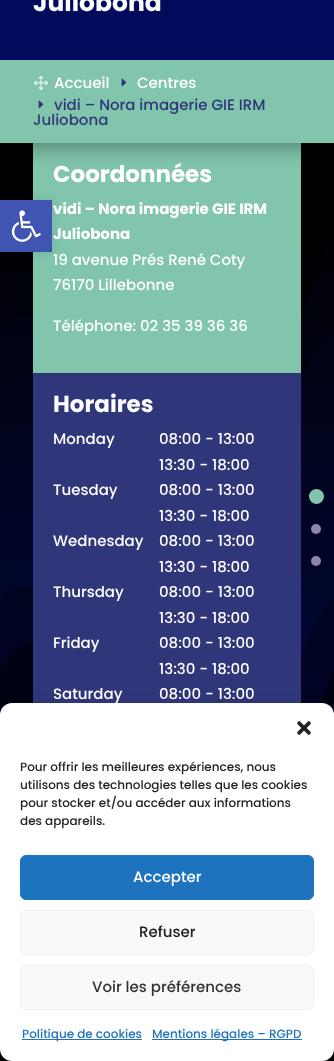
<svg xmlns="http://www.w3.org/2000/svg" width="334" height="1061">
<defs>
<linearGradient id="g1" gradientUnits="userSpaceOnUse" x1="167" y1="143" x2="167" y2="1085"><stop offset="0" stop-color="#000"/><stop offset="1" stop-color="#000c5b"/></linearGradient>
</defs>
<rect width="100%" height="100%" fill="#000c5b"/>
<text x="33" y="11" style="font-family:Poppins;font-size:25px;font-weight:bold;fill:#fff">Juliobona</text>
<rect y="143" width="334" height="572" fill="url(#g1)"/>
<image x="0" y="190" width="334" height="186" href="media/3.png"/>
<rect x="33" y="143" width="268" height="230" fill="#80c5ac"/>
<rect x="6" y="78" width="322" height="71" fill="#0000004d" filter="blur(9px)"/>
<rect y="60" width="334" height="83" fill="#80c5ac"/>
<image x="34" y="76" width="14" height="14" href="media/1.png"/>
<text x="54" y="88" style="font-family:Poppins;font-size:15px;font-weight:500;fill:#fff">Accueil</text>
<image x="121" y="78" width="6" height="9" href="media/2.png"/>
<text x="137" y="88" style="font-family:Poppins;font-size:15px;font-weight:500;fill:#fff">Centres</text>
<image x="38" y="100" width="6" height="9" href="media/2.png"/>
<text x="54" y="110" style="font-family:Poppins;font-size:15px;font-weight:500;fill:#30367a">vidi – Nora imagerie GIE IRM</text>
<text x="33" y="125" style="font-family:Poppins;font-size:15px;font-weight:500;fill:#30367a">Juliobona</text>
<text x="53" y="182" style="font-family:Poppins;font-size:23px;font-weight:bold;fill:#fff">Coordonnées</text>
<text x="53" y="214" style="font-family:Poppins;font-size:15px;font-weight:bold;fill:#fff">vidi – Nora imagerie GIE IRM</text>
<text x="53" y="239" style="font-family:Poppins;font-size:15px;font-weight:bold;fill:#fff">Juliobona</text>
<text x="53" y="265" style="font-family:Poppins;font-size:15px;font-weight:500;fill:#fff">19 avenue Prés René Coty</text>
<text x="53" y="290" style="font-family:Poppins;font-size:15px;font-weight:500;fill:#fff">76170 Lillebonne</text>
<text x="53" y="331" style="font-family:Poppins;font-size:15px;font-weight:500;fill:#fff">Téléphone: 02 35 39 36 36</text>
<image x="0" y="587" width="334" height="474" href="media/4.png"/>
<rect x="33" y="373" width="268" height="330" fill="#30367a"/>
<text x="53" y="412" style="font-family:Poppins;font-size:23px;font-weight:bold;fill:#fff">Horaires</text>
<text x="53" y="444" style="font-family:Poppins;font-size:15px;font-weight:500;fill:#fff">Monday</text>
<text x="159" y="444" style="font-family:Poppins;font-size:15px;font-weight:500;fill:#fff">08:00 - 13:00</text>
<text x="159" y="470" style="font-family:Poppins;font-size:15px;font-weight:500;fill:#fff">13:30 - 18:00</text>
<text x="53" y="495" style="font-family:Poppins;font-size:15px;font-weight:500;fill:#fff">Tuesday</text>
<text x="159" y="495" style="font-family:Poppins;font-size:15px;font-weight:500;fill:#fff">08:00 - 13:00</text>
<text x="159" y="521" style="font-family:Poppins;font-size:15px;font-weight:500;fill:#fff">13:30 - 18:00</text>
<text x="53" y="546" style="font-family:Poppins;font-size:15px;font-weight:500;fill:#fff">Wednesday</text>
<text x="159" y="546" style="font-family:Poppins;font-size:15px;font-weight:500;fill:#fff">08:00 - 13:00</text>
<text x="159" y="572" style="font-family:Poppins;font-size:15px;font-weight:500;fill:#fff">13:30 - 18:00</text>
<text x="53" y="597" style="font-family:Poppins;font-size:15px;font-weight:500;fill:#fff">Thursday</text>
<text x="159" y="597" style="font-family:Poppins;font-size:15px;font-weight:500;fill:#fff">08:00 - 13:00</text>
<text x="159" y="623" style="font-family:Poppins;font-size:15px;font-weight:500;fill:#fff">13:30 - 18:00</text>
<text x="53" y="648" style="font-family:Poppins;font-size:15px;font-weight:500;fill:#fff">Friday</text>
<text x="159" y="648" style="font-family:Poppins;font-size:15px;font-weight:500;fill:#fff">08:00 - 13:00</text>
<text x="159" y="674" style="font-family:Poppins;font-size:15px;font-weight:500;fill:#fff">13:30 - 18:00</text>
<text x="53" y="699" style="font-family:Poppins;font-size:15px;font-weight:500;fill:#fff">Saturday</text>
<text x="159" y="699" style="font-family:Poppins;font-size:15px;font-weight:500;fill:#fff">08:00 - 13:00</text>
<circle cx="316.5" cy="496.5" r="7.5" fill="#80c5ac"/>
<circle cx="316" cy="529" r="5" fill="#8b86ae"/>
<circle cx="316" cy="561" r="5" fill="#8b86ae"/>
<rect y="200" width="52" height="52" fill="#0000001a" filter="blur(5px)"/>
<rect y="200" width="52" height="52" fill="#4054b2"/>
<image x="11" y="210" width="30" height="32" href="media/5.png"/>
<rect y="713" width="334" height="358" rx="12" fill="#00000030" filter="blur(10px)"/>
<rect y="703" width="334" height="358" rx="12" fill="#fff"/>
<image x="297" y="721" width="14" height="14" href="media/6.png"/>
<text x="20" y="771" style="font-family:Poppins;font-size:12px;font-weight:500;fill:#222">Pour offrir les meilleures expériences, nous</text>
<text x="20" y="789" style="font-family:Poppins;font-size:12px;font-weight:500;fill:#222">utilisons des technologies telles que les cookies</text>
<text x="20" y="807" style="font-family:Poppins;font-size:12px;font-weight:500;fill:#222">pour stocker et/ou accéder aux informations</text>
<text x="20" y="825" style="font-family:Poppins;font-size:12px;font-weight:500;fill:#222">des appareils.</text>
<rect x="20.5" y="855.5" width="293" height="44" rx="5.5" fill="#1e73be" stroke="#1e73be"/>
<text x="133" y="882" style="font-family:Poppins;font-size:15px;font-weight:500;fill:#fff">Accepter</text>
<rect x="20.5" y="910.5" width="293" height="44" rx="5.5" fill="#f9f9f9" stroke="#f2f2f2"/>
<text x="139" y="937" style="font-family:Poppins;font-size:15px;font-weight:500;fill:#222">Refuser</text>
<rect x="20.5" y="965.5" width="293" height="44" rx="5.5" fill="#f9f9f9" stroke="#f2f2f2"/>
<text x="92" y="992" style="font-family:Poppins;font-size:15px;font-weight:500;fill:#333">Voir les préférences</text>
<rect x="22" y="1039" width="120" height="1" fill="#1e73be"/>
<text x="22" y="1038" style="font-family:Poppins;font-size:12px;font-weight:500;fill:#1e73be">Politique de cookies</text>
<rect x="152" y="1039" width="150" height="1" fill="#1e73be"/>
<text x="152" y="1038" style="font-family:Poppins;font-size:12px;font-weight:500;fill:#1e73be">Mentions légales – RGPD</text>
</svg>
